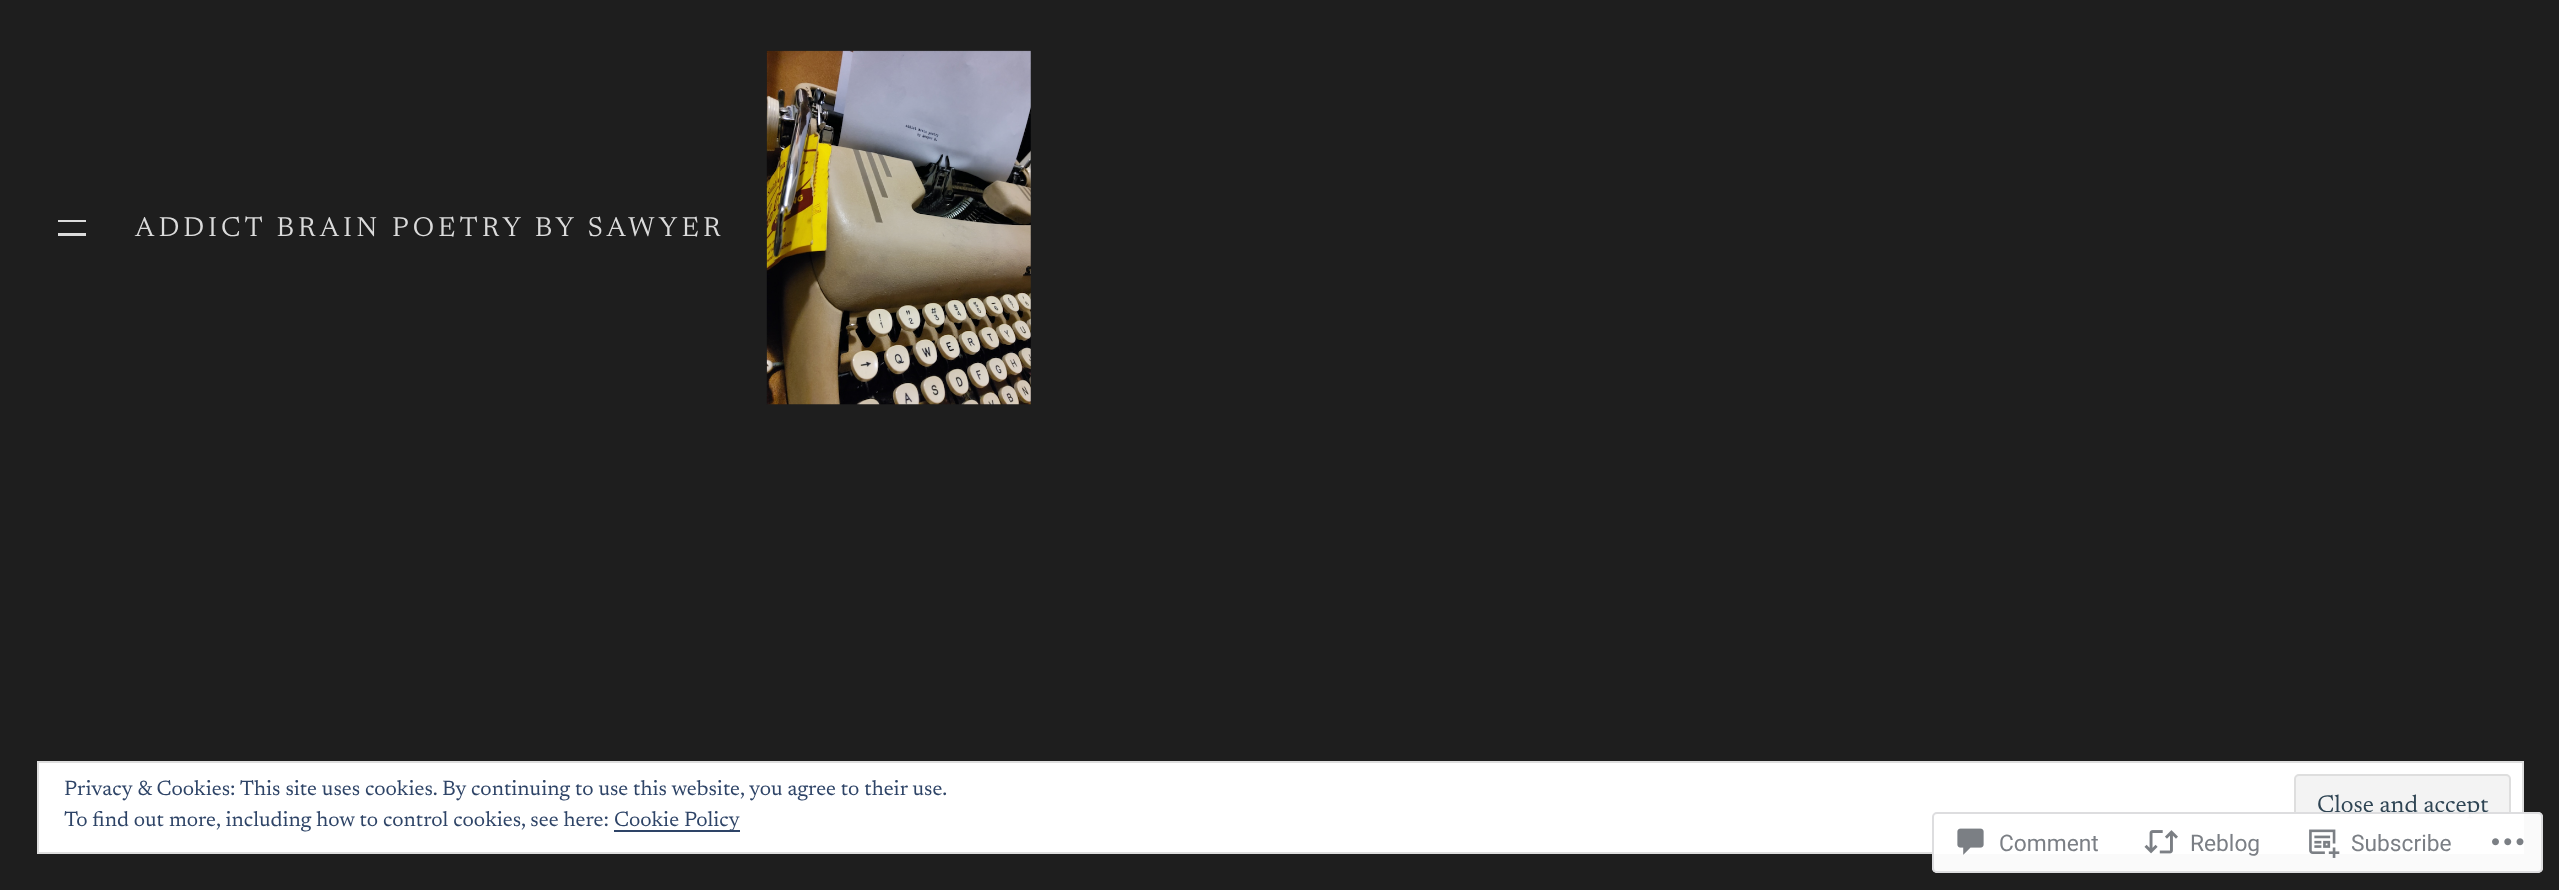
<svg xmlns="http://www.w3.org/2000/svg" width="2559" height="890">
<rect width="100%" height="100%" fill="#1e1e1e"/>
<rect x="58" y="220" width="28" height="2" fill="#dbdbdb"/>
<rect x="58" y="233" width="28" height="3" fill="#dbdbdb"/>
<text x="135" y="236" style="font-family:Newsreader;font-size:28px;letter-spacing:4.2px;fill:#dbdbdb">ADDICT BRAIN POETRY BY SAWYER</text>
<image x="766" y="50" width="265" height="355" href="media/1.png"/>
<rect x="38" y="762" width="2485" height="91" fill="#fff" stroke="#dedede" stroke-width="2"/>
<text x="64" y="795" style="font-family:'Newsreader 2';font-size:21px;fill:#2e4467">Privacy &amp; Cookies: This site uses cookies. By continuing to use this website, you agree to their use.</text>
<text x="64" y="826" style="font-family:'Newsreader 2';font-size:21px;fill:#2e4467">To find out more, including how to control cookies, see here:</text>
<rect x="614" y="830" width="126" height="2" fill="#2e4467"/>
<text x="614" y="826" style="font-family:'Newsreader 2';font-size:21px;fill:#2e4467">Cookie Policy</text>
<rect x="2295" y="775" width="215" height="66" rx="4" fill="#f3f3f3" stroke="#dedede" stroke-width="2"/>
<text x="2317" y="812" style="font-family:'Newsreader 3';font-size:24.5px;fill:#2e4453">Close and accept</text>
<rect x="1932" y="812" width="611" height="61" rx="5" fill="#fffffffa"/>
<rect x="1933" y="813" width="609" height="59" rx="4" fill="none" stroke="#dcdcdefa" stroke-width="2"/>
<image x="1957" y="828" width="27" height="27" href="media/2.png"/>
<text x="1999" y="851" style="font-family:Roboto;font-size:22.75px;fill:#7b7f85">Comment</text>
<image x="2144" y="830" width="34" height="24" href="media/3.png"/>
<text x="2190" y="851" style="font-family:Roboto;font-size:22.75px;fill:#7b7f85">Reblog</text>
<image x="2309" y="829" width="31" height="29" href="media/4.png"/>
<text x="2351" y="851" style="font-family:Roboto;font-size:22.75px;fill:#7b7f85">Subscribe</text>
<image x="2492" y="838" width="32" height="8" href="media/5.png"/>
</svg>
